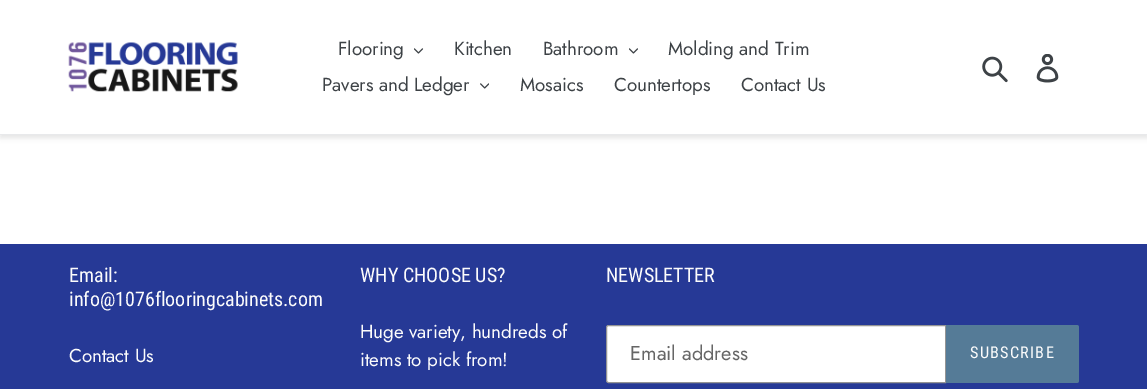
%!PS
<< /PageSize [1147 389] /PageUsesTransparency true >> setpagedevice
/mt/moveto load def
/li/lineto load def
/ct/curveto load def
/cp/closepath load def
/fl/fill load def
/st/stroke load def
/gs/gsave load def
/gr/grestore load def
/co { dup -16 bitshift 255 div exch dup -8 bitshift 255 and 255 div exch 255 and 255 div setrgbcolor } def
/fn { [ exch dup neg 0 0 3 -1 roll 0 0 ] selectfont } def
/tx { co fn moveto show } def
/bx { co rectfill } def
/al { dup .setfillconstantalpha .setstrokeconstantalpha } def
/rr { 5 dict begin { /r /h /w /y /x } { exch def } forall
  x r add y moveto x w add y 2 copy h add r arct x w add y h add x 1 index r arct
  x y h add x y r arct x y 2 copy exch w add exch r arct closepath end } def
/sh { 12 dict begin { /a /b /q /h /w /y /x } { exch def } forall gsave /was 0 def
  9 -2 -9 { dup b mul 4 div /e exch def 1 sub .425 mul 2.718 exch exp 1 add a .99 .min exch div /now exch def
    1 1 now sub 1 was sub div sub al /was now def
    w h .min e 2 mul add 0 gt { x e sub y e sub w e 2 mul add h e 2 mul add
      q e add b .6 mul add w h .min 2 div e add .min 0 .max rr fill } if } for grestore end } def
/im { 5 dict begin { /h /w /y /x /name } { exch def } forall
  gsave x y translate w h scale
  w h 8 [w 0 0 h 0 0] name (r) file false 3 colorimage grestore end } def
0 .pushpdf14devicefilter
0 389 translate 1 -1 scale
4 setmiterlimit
0 0 1147 389 16#FFFFFF bx
16#000000 co
0 3 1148 135 0 2.5 .1 sh
0 0 1147 134 16#FFFFFF bx
0 134 1147 1 16#E8E9EB bx
(media/1.raw) 68 42 170 50 im
(media/2.raw) 414 48 10 6 im
(media/3.raw) 629 48 9 6 im
(media/4.raw) 480 83 9 6 im
(media/5.raw) 982 56 26 27 im
(media/6.raw) 1036 54 23 29 im
0 244 1147 145 16#263996 bx
16#FFFFFF co
608.5 325.5 mt 945.5 325.5 li 945.5 382.5 li 608.5 382.5 li 607.5 382.5 606.5 381.5 606.5 380.5 ct 606.5 327.5 li 606.5 326.5 607.5 325.5 608.5 325.5 ct cp gs fl gr
16#949494 co
st
16#557B97 co
946 325 mt 1076.5 325 li 1078 325 1079 326 1079 327.5 ct 1079 380.5 li 1079 382 1078 383 1076.5 383 ct 946 383 li cp fl
(Flooring) 338 55 /Jost-Regular 18.75 16#3D4246 tx
(Kitchen) 454 55 /Jost-Regular 18.75 16#3D4246 tx
(Bathroom) 543 55 /Jost-Regular 18.75 16#3D4246 tx
(Molding and Trim) 668 55 /Jost-Regular 18.75 16#3D4246 tx
(Pavers and Ledger) 322 91 /Jost-Regular 18.75 16#3D4246 tx
(Mosaics) 520 91 /Jost-Regular 18.75 16#3D4246 tx
(Countertops) 614 91 /Jost-Regular 18.75 16#3D4246 tx
(Contact Us) 741 91 /Jost-Regular 18.75 16#3D4246 tx
(Email:) 69 282 /RobotoCondensed-Regular 20 16#FCFCFC tx
(info@1076flooringcabinets.com) 69 306 /RobotoCondensed-Regular 20 16#FCFCFC tx
(Contact Us) 69 362 /Jost-Regular 18.75 16#FCFCFC tx
(WHY CHOOSE US?) 360 282 /RobotoCondensed-Regular 20 16#FCFCFC tx
(Huge variety, hundreds of) 360 338 /Jost-Regular 18.75 16#FCFCFC tx
(items to pick from!) 360 366 /Jost-Regular 18.75 16#FCFCFC tx
(NEWSLETTER) 606 282 /RobotoCondensed-Regular 20 16#FCFCFC tx
(Email address) 630 360 /Jost-Regular 20 16#666666 tx
/RobotoCondensed-Regular 16.25 fn
16#FCFCFC co
970 358 mt 1.25 0 (SUBSCRIBE) ashow
.poppdf14devicefilter showpage
